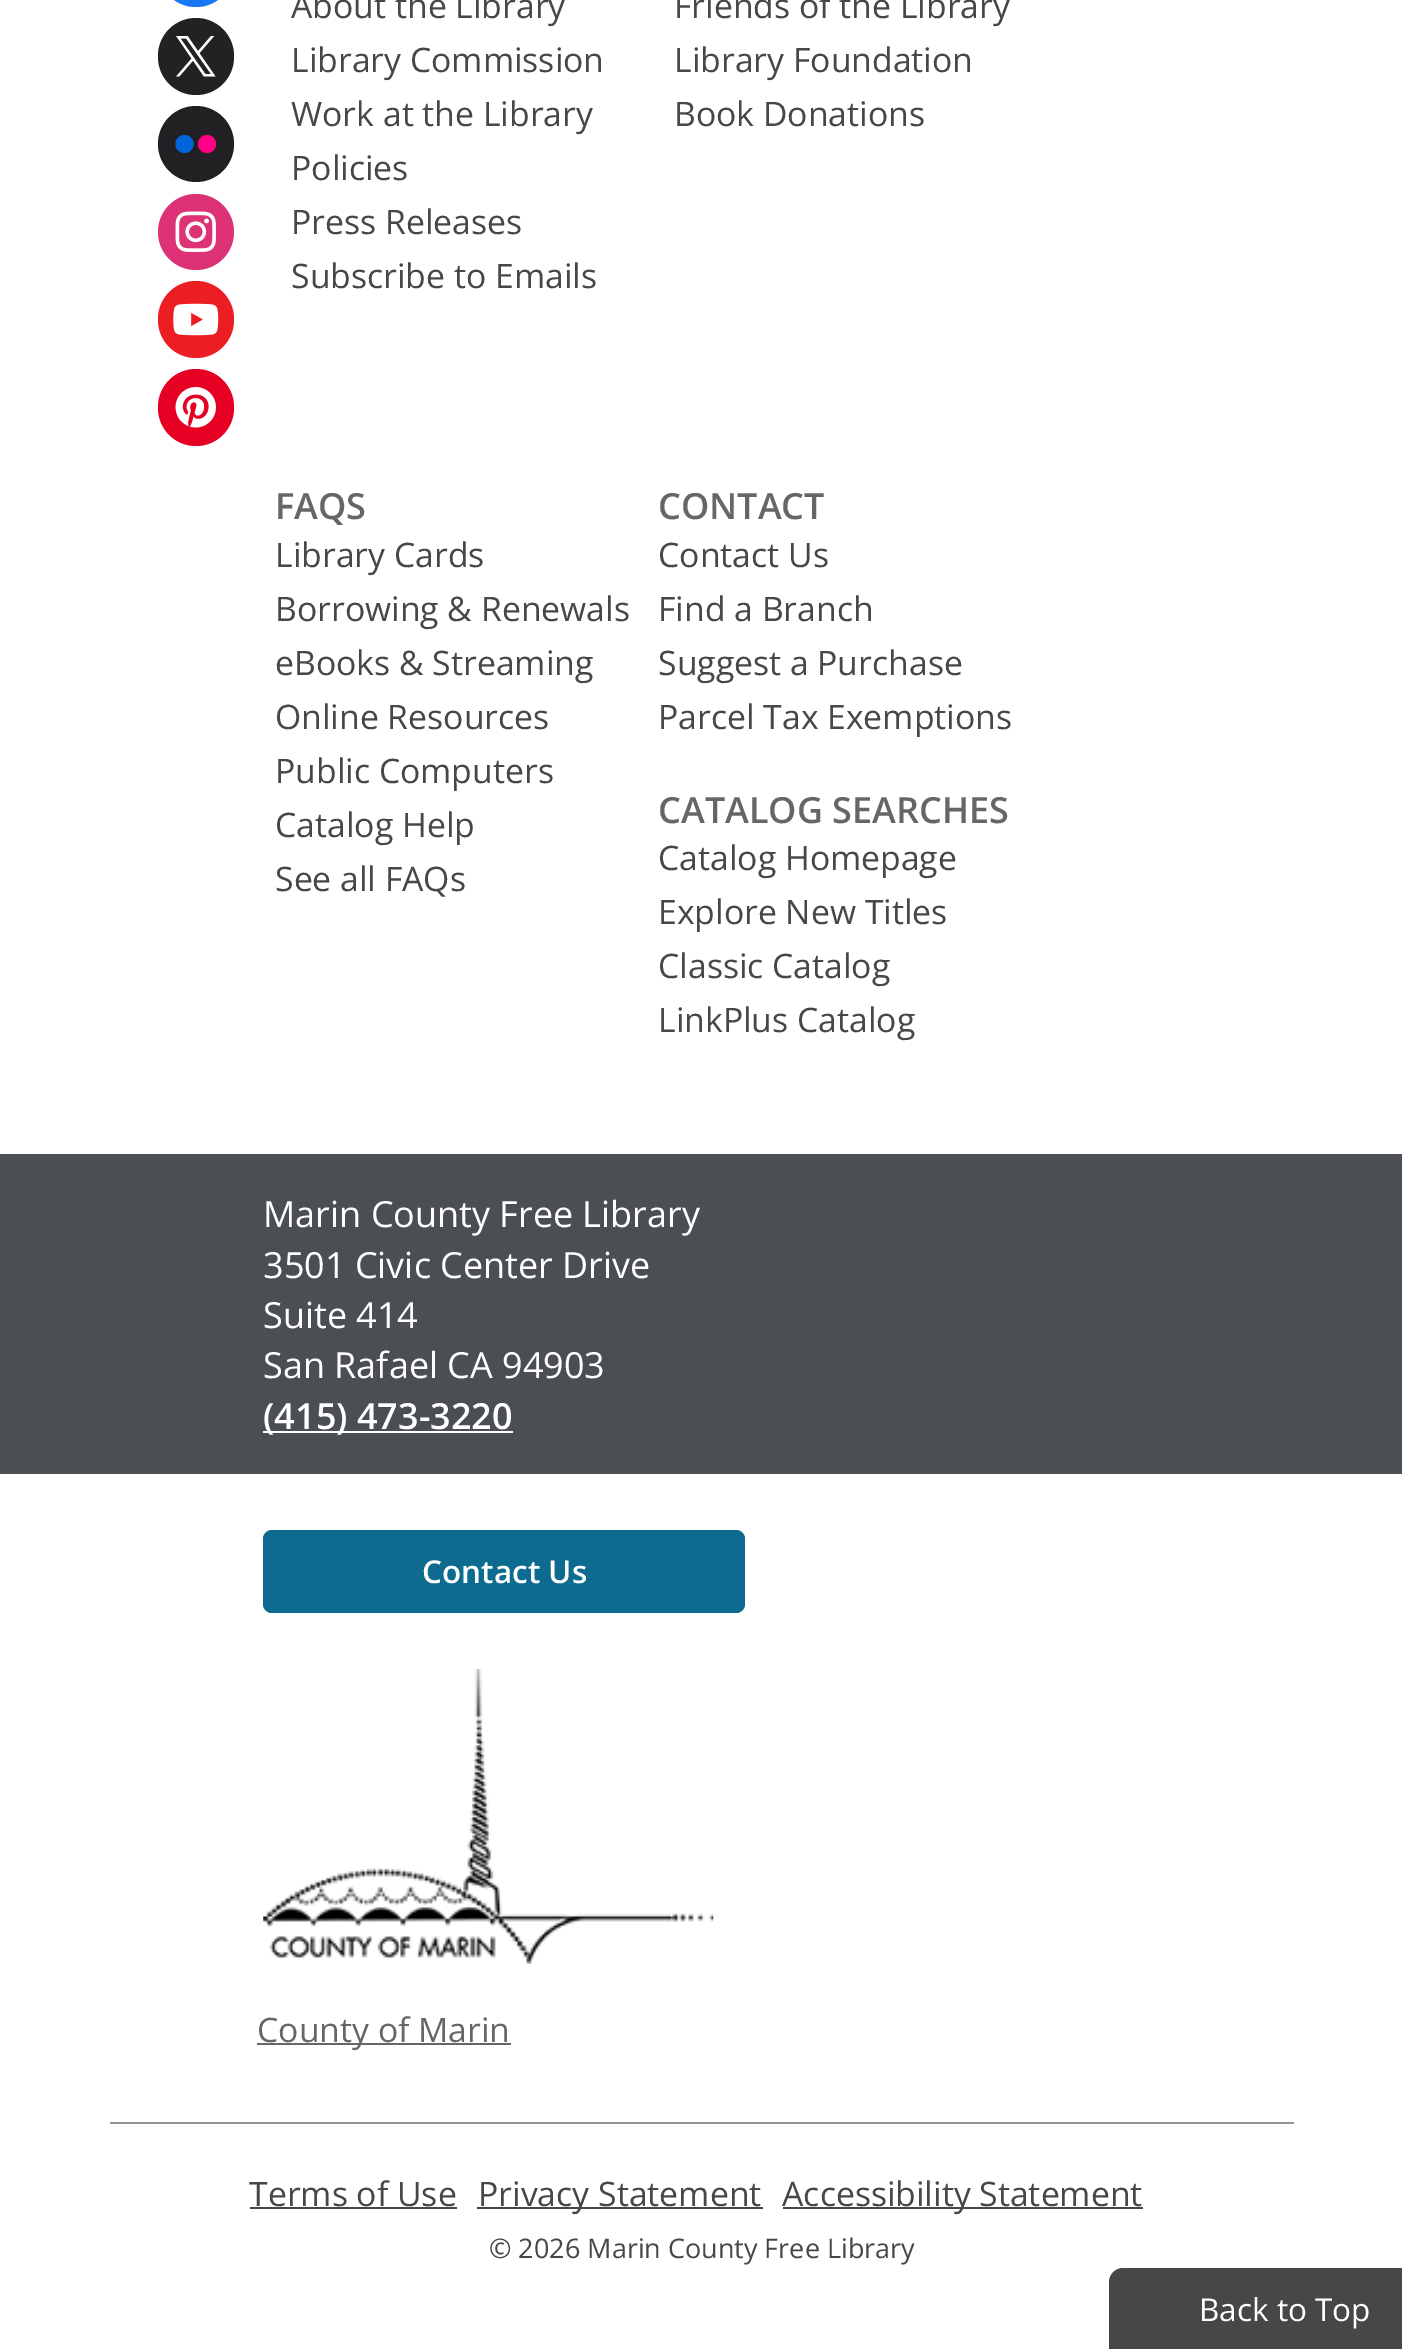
%!PS
<< /PageSize [1402 2349] >> setpagedevice
/mt/moveto load def
/li/lineto load def
/ct/curveto load def
/cp/closepath load def
/fl/fill load def
/co { dup -16 bitshift 255 div exch dup -8 bitshift 255 and 255 div exch 255 and 255 div setrgbcolor } def
/fn { [ exch dup neg 0 0 3 -1 roll 0 0 ] selectfont } def
/tx { co fn moveto show } def
/bx { co rectfill } def
/ci { newpath 0 360 arc closepath } def
/rr { 5 dict begin { /r /h /w /y /x } { exch def } forall
  x r add y moveto x w add y 2 copy h add r arct x w add y h add x 1 index r arct
  x y h add x y r arct x y 2 copy exch w add exch r arct closepath end } def
/im { 5 dict begin { /h /w /y /x /name } { exch def } forall
  gsave x y translate w h scale
  w h 8 [w 0 0 h 0 0] name (r) file false 3 colorimage grestore end } def
0 2349 translate 1 -1 scale
4 setmiterlimit
0 0 1402 2349 16#FFFFFF bx
16#1877F2 co
158 -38 76 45 38 rr fl
16#222222 co
158 18 76 77 38 rr fl
(media/1.raw) 176 36 40 41 im
16#212123 co
196 144 38 ci fl
16#0063DC co
184.5 144 9 ci fl
16#FF0084 co
207 144 9 ci fl
16#DD3275 co
196 232 38 ci fl
(media/2.raw) 175 211 41 41 im
16#ED1D24 co
158 281 76 77 38 rr fl
(media/3.raw) 173 303 46 33 im
16#E60023 co
158 369 76 77 38 rr fl
(media/4.raw) 175 387 41 41 im
0 1154 1402 320 16#4B4F54 bx
263 1431 250 2 16#FFFFFF bx
16#0D6B8F co
263 1530 482 83 9 rr fl
(media/5.raw) 263 1669 451 295 im
257 2043 254 2 16#666666 bx
110 2122 1184 2 16#949494 bx
250 2207 207 2 16#474747 bx
477 2207 286 2 16#474747 bx
783 2207 360 2 16#474747 bx
1123 2268 mt 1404 2268 li 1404 2349 li 1109 2349 li 1109 2282 li 1109 2274.5 1115.5 2268 1123 2268 ct cp fl
(About the Library) 291 18 /OpenSans-Regular 33.75 16#474747 tx
(Library Commission) 291 72 /OpenSans-Regular 33.75 16#474747 tx
(Work at the Library) 291 126 /OpenSans-Regular 33.75 16#474747 tx
(Policies) 291 180 /OpenSans-Regular 33.75 16#474747 tx
(Press Releases) 291 234 /OpenSans-Regular 33.75 16#474747 tx
(Subscribe to Emails) 291 288 /OpenSans-Regular 33.75 16#474747 tx
(Friends of the Library) 674 18 /OpenSans-Regular 33.75 16#474747 tx
(Library Foundation) 674 72 /OpenSans-Regular 33.75 16#474747 tx
(Book Donations) 674 126 /OpenSans-Regular 33.75 16#474747 tx
(FAQS) 275 519 /OpenSans-SemiBold 36 16#666666 tx
(Library Cards) 275 567 /OpenSans-Regular 33.75 16#474747 tx
(Borrowing & Renewals) 275 621 /OpenSans-Regular 33.75 16#474747 tx
(eBooks & Streaming) 275 675 /OpenSans-Regular 33.75 16#474747 tx
(Online Resources) 275 729 /OpenSans-Regular 33.75 16#474747 tx
(Public Computers) 275 783 /OpenSans-Regular 33.75 16#474747 tx
(Catalog Help) 275 837 /OpenSans-Regular 33.75 16#474747 tx
(See all FAQs) 275 891 /OpenSans-Regular 33.75 16#474747 tx
(CONTACT) 658 519 /OpenSans-SemiBold 36 16#666666 tx
(Contact Us) 658 567 /OpenSans-Regular 33.75 16#474747 tx
(Find a Branch) 658 621 /OpenSans-Regular 33.75 16#474747 tx
(Suggest a Purchase) 658 675 /OpenSans-Regular 33.75 16#474747 tx
(Parcel Tax Exemptions) 658 729 /OpenSans-Regular 33.75 16#474747 tx
(CATALOG SEARCHES) 658 823 /OpenSans-SemiBold 36 16#666666 tx
(Catalog Homepage) 658 870 /OpenSans-Regular 33.75 16#474747 tx
(Explore New Titles) 658 924 /OpenSans-Regular 33.75 16#474747 tx
(Classic Catalog) 658 978 /OpenSans-Regular 33.75 16#474747 tx
(LinkPlus Catalog) 658 1032 /OpenSans-Regular 33.75 16#474747 tx
(Marin County Free Library) 263 1227 /OpenSans-Regular 36 16#FFFFFF tx
(3501 Civic Center Drive) 263 1278 /OpenSans-Regular 36 16#FFFFFF tx
(Suite 414) 263 1328 /OpenSans-Regular 36 16#FFFFFF tx
(San Rafael CA 94903) 263 1378 /OpenSans-Regular 36 16#FFFFFF tx
(\(415\) 473-3220) 263 1429 /OpenSans-SemiBold 36 16#FFFFFF tx
(Contact Us) 422 1583 /OpenSans-SemiBold 31.5 16#FFFFFF tx
(County of Marin) 257 2042 /OpenSans-Regular 33.75 16#666666 tx
(Terms of Use) 249 2206 /OpenSans-Regular 33.75 16#474747 tx
(Privacy Statement) 478 2206 /OpenSans-Regular 33.75 16#474747 tx
(Accessibility Statement) 782 2206 /OpenSans-Regular 33.75 16#474747 tx
(© 2026 Marin County Free Library) 489 2258 /OpenSans-Regular 27 16#474747 tx
(Back to Top) 1199 2321 /OpenSans-Regular 31.5 16#FFFFFF tx
showpage
